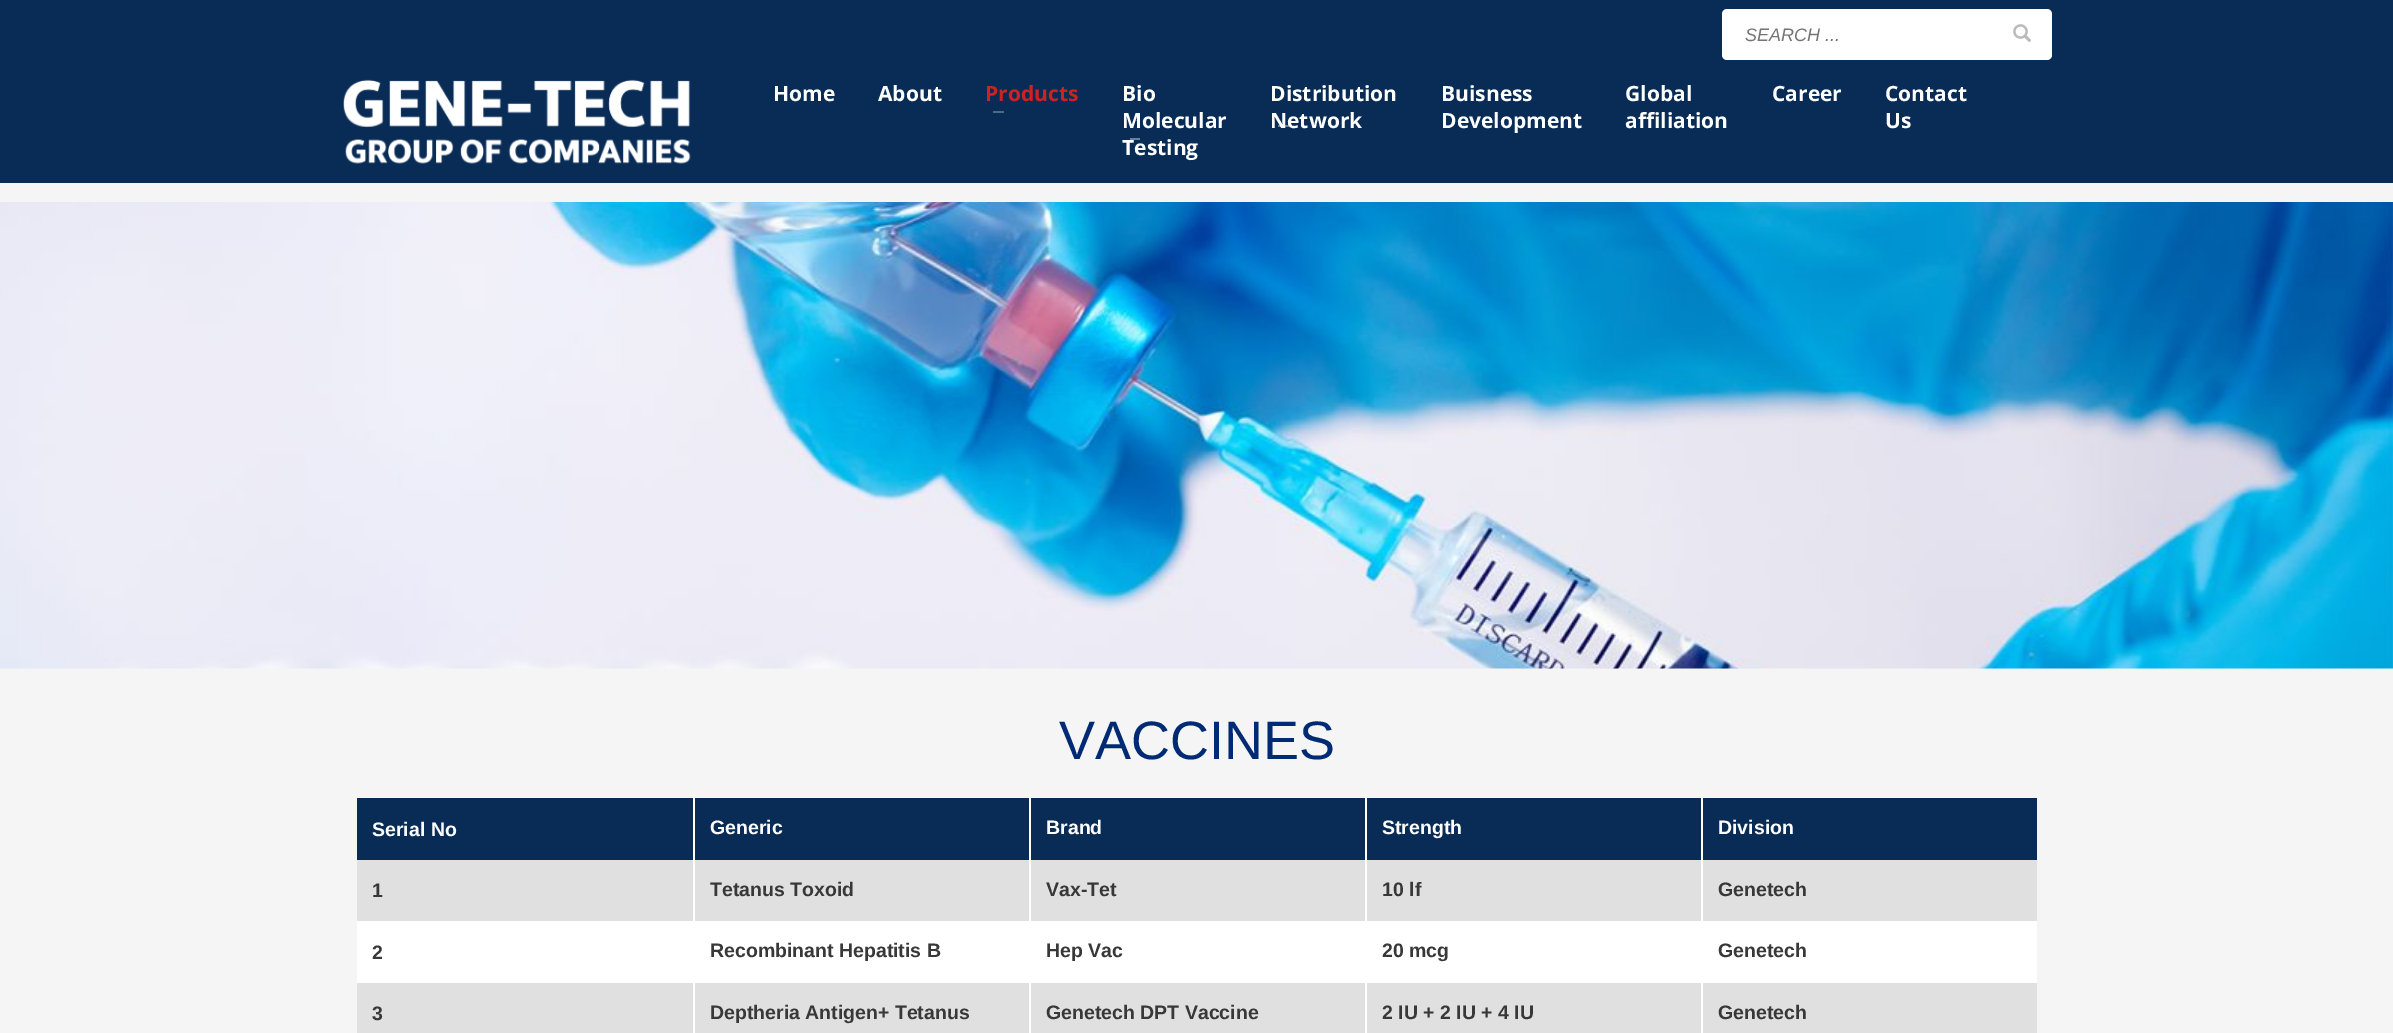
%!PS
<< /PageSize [2393 1033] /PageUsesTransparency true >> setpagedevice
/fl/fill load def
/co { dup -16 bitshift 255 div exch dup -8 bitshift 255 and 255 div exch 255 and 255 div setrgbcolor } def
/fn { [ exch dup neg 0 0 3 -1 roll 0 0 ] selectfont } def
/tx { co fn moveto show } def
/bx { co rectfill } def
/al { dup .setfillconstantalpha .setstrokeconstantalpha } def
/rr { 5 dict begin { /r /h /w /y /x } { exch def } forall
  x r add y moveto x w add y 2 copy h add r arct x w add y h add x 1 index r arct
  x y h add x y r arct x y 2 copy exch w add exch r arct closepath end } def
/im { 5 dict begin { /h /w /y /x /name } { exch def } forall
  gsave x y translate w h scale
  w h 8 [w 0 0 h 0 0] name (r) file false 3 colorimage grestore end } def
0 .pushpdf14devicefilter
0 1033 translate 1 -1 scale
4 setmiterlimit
0 0 2393 1033 16#F5F5F5 bx
0 0 2393 183 16#092C56 bx
16#FFFFFF co
1722 9 330 51 5 rr fl
(media/1.raw) 2013 24 18 18 im
(media/2.raw) 343 79 348 85 im
993 111 11 2 16#4E6785 bx
(media/3.raw) 0 202 2393 467 im
357 798 1680 62 16#092C56 bx
693 798 2 62 16#FFFFFF bx
1029 798 2 62 16#FFFFFF bx
1365 798 2 62 16#FFFFFF bx
1701 798 2 62 16#FFFFFF bx
357 860 1680 61 16#E0E0E0 bx
693 860 2 61 16#FFFFFF bx
1029 860 2 61 16#FFFFFF bx
1365 860 2 61 16#FFFFFF bx
1701 860 2 61 16#FFFFFF bx
357 921 1680 62 16#FFFFFF bx
357 983 1680 50 16#E0E0E0 bx
693 983 2 50 16#FFFFFF bx
1029 983 2 50 16#FFFFFF bx
1365 983 2 50 16#FFFFFF bx
1701 983 2 50 16#FFFFFF bx
(SEARCH ...) 1745 41 /LiberationSans-Italic 18 16#757575 tx
(Home) 773 101 /OpenSans-Bold 21 16#FFFFFF tx
(About) 878 101 /OpenSans-Bold 21 16#FFFFFF tx
(Products) 985 101 /OpenSans-Bold 21 16#CD2122 tx
(Bio) 1122 101 /OpenSans-Bold 21 16#FFFFFF tx
(Molecular) 1122 128 /OpenSans-Bold 21 16#FFFFFF tx
(Testing) 1122 155 /OpenSans-Bold 21 16#FFFFFF tx
1130 138 10 2 16#6B809A bx
(Distribution) 1270 101 /OpenSans-Bold 21 16#FFFFFF tx
(Network) 1270 128 /OpenSans-Bold 21 16#FFFFFF tx
0.4 al
1278 125 11 2 16#FFFFFF bx
1 al
(Buisness) 1441 101 /OpenSans-Bold 21 16#FFFFFF tx
(Development) 1441 128 /OpenSans-Bold 21 16#FFFFFF tx
(Global) 1625 101 /OpenSans-Bold 21 16#FFFFFF tx
(affiliation) 1625 128 /OpenSans-Bold 21 16#FFFFFF tx
(Career) 1772 101 /OpenSans-Bold 21 16#FFFFFF tx
(Contact) 1885 101 /OpenSans-Bold 21 16#FFFFFF tx
(Us) 1885 128 /OpenSans-Bold 21 16#FFFFFF tx
(VACCINES) 1059 759 /LiberationSans-Regular 54 16#002A74 tx
(Serial No) 372 836 /LiberationSans-Bold 19.5 16#FFFFFF tx
(Generic) 710 834 /LiberationSans-Bold 19.5 16#FFFFFF tx
(Brand) 1046 834 /LiberationSans-Bold 19.5 16#FFFFFF tx
(Strength) 1382 834 /LiberationSans-Bold 19.5 16#FFFFFF tx
(Division) 1718 834 /LiberationSans-Bold 19.5 16#FFFFFF tx
(1) 372 897 /LiberationSans-Bold 19.5 16#383838 tx
(Tetanus Toxoid) 710 896 /LiberationSans-Bold 19.5 16#383838 tx
(Vax-Tet) 1046 896 /LiberationSans-Bold 19.5 16#383838 tx
(10 lf) 1382 896 /LiberationSans-Bold 19.5 16#383838 tx
(Genetech) 1718 896 /LiberationSans-Bold 19.5 16#383838 tx
(2) 372 959 /LiberationSans-Bold 19.5 16#383838 tx
(Recombinant Hepatitis B) 710 957 /LiberationSans-Bold 19.5 16#383838 tx
(Hep Vac) 1046 957 /LiberationSans-Bold 19.5 16#383838 tx
(20 mcg) 1382 957 /LiberationSans-Bold 19.5 16#383838 tx
(Genetech) 1718 957 /LiberationSans-Bold 19.5 16#383838 tx
(3) 372 1020 /LiberationSans-Bold 19.5 16#383838 tx
(Deptheria Antigen+ Tetanus) 710 1019 /LiberationSans-Bold 19.5 16#383838 tx
(Genetech DPT Vaccine) 1046 1019 /LiberationSans-Bold 19.5 16#383838 tx
(2 IU + 2 IU + 4 IU) 1382 1019 /LiberationSans-Bold 19.5 16#383838 tx
(Genetech) 1718 1019 /LiberationSans-Bold 19.5 16#383838 tx
.poppdf14devicefilter showpage
